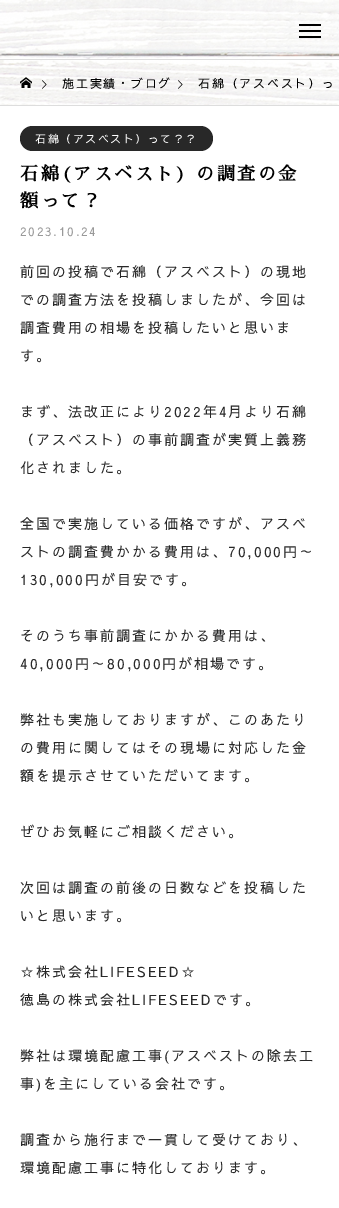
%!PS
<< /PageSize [339 1208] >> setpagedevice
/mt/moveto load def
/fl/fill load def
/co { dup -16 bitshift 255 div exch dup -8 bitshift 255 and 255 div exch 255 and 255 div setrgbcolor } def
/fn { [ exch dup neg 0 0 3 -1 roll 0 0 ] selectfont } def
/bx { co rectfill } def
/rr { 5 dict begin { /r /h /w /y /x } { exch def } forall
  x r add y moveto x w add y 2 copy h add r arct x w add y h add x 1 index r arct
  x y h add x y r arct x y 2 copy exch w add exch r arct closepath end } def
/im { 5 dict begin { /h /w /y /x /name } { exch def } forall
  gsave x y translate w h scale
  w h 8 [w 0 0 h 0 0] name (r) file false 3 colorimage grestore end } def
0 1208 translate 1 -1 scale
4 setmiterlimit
0 0 339 1208 16#FFFFFF bx
(media/1.raw) 0 0 339 105 im
299 24 22 2 16#000000 bx
299 30 22 2 16#000000 bx
299 36 22 2 16#000000 bx
0 59 339 1 16#DDDDDD bx
0 105 339 1 16#DDDDDD bx
(media/2.raw) 20 77 12 11 im
(media/3.raw) 42 80 5 9 im
(media/4.raw) 178 80 5 9 im
16#282828 co
20 126 193 25 12.5 rr fl
/SawarabiGothic-Regular 12 fn
16#000000 co
62 88 mt 1.75 0 (施工実績・ブログ) ashow
198 88 mt 1.75 0 (石綿（アスベスト）っ) ashow
/SawarabiGothic-Regular 11 fn
16#FFFFFF co
35 143 mt 1.5 0 (石綿（アスベスト）って？？) ashow
/SawarabiMincho-Bold 18 fn
16#000000 co
20 180 mt 2.5 0 (石綿\(アスベスト\) の調査の金) ashow
20 207 mt 2.5 0 (額って？) ashow
/SawarabiGothic-Regular 12 fn
16#999999 co
20 236 mt 1.75 0 (2023.10.24) ashow
/SawarabiGothic-Regular 14 fn
16#282828 co
20 277 mt 2 0 (前回の投稿で石綿（アスベスト）の現地) ashow
20 305 mt 2 0 (での調査方法を投稿しましたが、今回は) ashow
20 333 mt 2 0 (調査費用の相場を投稿したいと思いま) ashow
20 361 mt 2 0 (す。) ashow
20 417 mt 2 0 (まず、法改正により2022年4月より石綿) ashow
20 445 mt 2 0 (（アスベスト）の事前調査が実質上義務) ashow
20 473 mt 2 0 (化されました。) ashow
20 529 mt 2 0 (全国で実施している価格ですが、アスベ) ashow
20 557 mt 2 0 (ストの調査費かかる費用は、70,000円～) ashow
20 585 mt 2 0 (130,000円が目安です。) ashow
20 641 mt 2 0 (そのうち事前調査にかかる費用は、) ashow
20 669 mt 2 0 (40,000円～80,000円が相場です。) ashow
20 725 mt 2 0 (弊社も実施しておりますが、このあたり) ashow
20 753 mt 2 0 (の費用に関してはその現場に対応した金) ashow
20 781 mt 2 0 (額を提示させていただいてます。) ashow
20 837 mt 2 0 (ぜひお気軽にご相談ください。) ashow
20 893 mt 2 0 (次回は調査の前後の日数などを投稿した) ashow
20 921 mt 2 0 (いと思います。) ashow
20 977 mt 2 0 (☆株式会社LIFESEED☆) ashow
20 1005 mt 2 0 (徳島の株式会社LIFESEEDです。) ashow
20 1061 mt 2 0 (弊社は環境配慮工事\(アスベストの除去工) ashow
20 1089 mt 2 0 (事\)を主にしている会社です。) ashow
20 1145 mt 2 0 (調査から施行まで一貫して受けており、) ashow
20 1173 mt 2 0 (環境配慮工事に特化しております。) ashow
showpage
